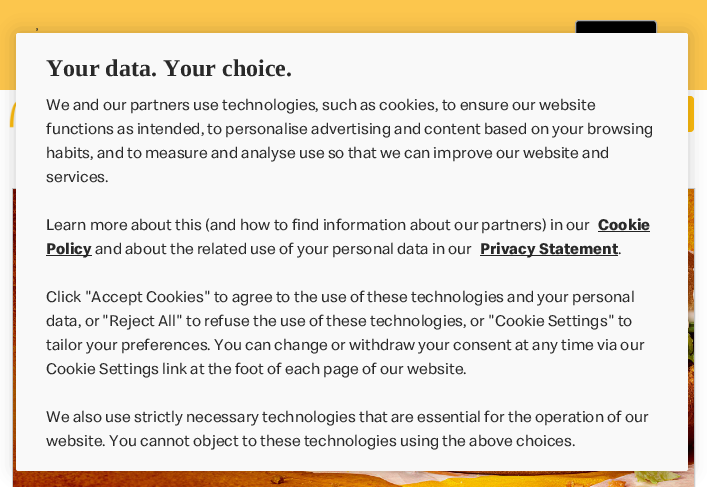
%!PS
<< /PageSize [707 487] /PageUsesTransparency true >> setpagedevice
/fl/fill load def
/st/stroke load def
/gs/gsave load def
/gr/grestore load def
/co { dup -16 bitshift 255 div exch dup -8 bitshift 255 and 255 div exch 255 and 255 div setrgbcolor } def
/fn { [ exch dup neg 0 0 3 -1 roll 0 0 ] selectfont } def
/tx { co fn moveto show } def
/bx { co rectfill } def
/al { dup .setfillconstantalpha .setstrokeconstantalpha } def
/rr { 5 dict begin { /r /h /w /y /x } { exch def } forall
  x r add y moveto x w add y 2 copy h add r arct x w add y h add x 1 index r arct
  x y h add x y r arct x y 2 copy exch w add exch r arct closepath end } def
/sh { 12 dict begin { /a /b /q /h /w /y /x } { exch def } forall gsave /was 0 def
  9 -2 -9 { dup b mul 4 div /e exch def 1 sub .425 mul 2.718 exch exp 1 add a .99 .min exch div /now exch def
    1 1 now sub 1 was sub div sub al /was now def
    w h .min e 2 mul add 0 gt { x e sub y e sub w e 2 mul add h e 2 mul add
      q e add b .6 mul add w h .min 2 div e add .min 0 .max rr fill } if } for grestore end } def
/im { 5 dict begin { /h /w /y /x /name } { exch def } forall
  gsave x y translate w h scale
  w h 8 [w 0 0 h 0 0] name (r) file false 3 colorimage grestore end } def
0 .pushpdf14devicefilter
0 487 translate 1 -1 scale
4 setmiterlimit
0 0 707 487 16#FFFFFF bx
0 0 707 90 16#FCC64D bx
16#000000 co
575 22 82 48 4 1 .08 sh
575.5 20.5 81 47 3.5 rr gs fl gr
16#ADADAD co
st
(media/1.raw) 9 100 7 28 im
16#FFBC0D co
564 96 130 36 4 rr fl
16#CECECE co
12.5 188.5 682 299 rectstroke
(media/2.raw) 13 189 681 298 im
16#000000 co
16 33 672 438 2.5 9 .2 sh
16#F9F9F9 co
16 33 672 438 2.5 rr fl
598 231 52 1 16#242424 bx
46 255 46 1 16#242424 bx
480 255 138 1 16#242424 bx
(’) 36 38 /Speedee-Regular 14 16#292929 tx
(Your data. Your choice.) 46 76 /LiberationSerif-Bold 24 16#292929 tx
(We and our partners use technologies, such as cookies, to ensure our website) 46 110 /Speedee-Regular 16 16#292929 tx
(functions as intended, to personalise advertising and content based on your browsing) 46 134 /Speedee-Regular 16 16#292929 tx
(habits, and to measure and analyse use so that we can improve our website and) 46 158 /Speedee-Regular 16 16#292929 tx
(services.) 46 182 /Speedee-Regular 16 16#292929 tx
(Learn more about this \(and how to find information about our partners\) in our) 46 230 /Speedee-Regular 16 16#292929 tx
(Cookie) 598 230 /Speedee-Bold 16 16#292929 tx
(Policy) 46 254 /Speedee-Bold 16 16#292929 tx
(and about the related use of your personal data in our) 95 254 /Speedee-Regular 16 16#292929 tx
(Privacy Statement) 480 254 /Speedee-Bold 16 16#292929 tx
(.) 618 254 /Speedee-Regular 16 16#292929 tx
(Click "Accept Cookies" to agree to the use of these technologies and your personal) 46 302 /Speedee-Regular 16 16#292929 tx
(data, or "Reject All" to refuse the use of these technologies, or "Cookie Settings" to) 46 326 /Speedee-Regular 16 16#292929 tx
(tailor your preferences. You can change or withdraw your consent at any time via our) 46 350 /Speedee-Regular 16 16#292929 tx
(Cookie Settings link at the foot of each page of our website.) 46 374 /Speedee-Regular 16 16#292929 tx
(We also use strictly necessary technologies that are essential for the operation of our) 46 422 /Speedee-Regular 16 16#292929 tx
(website. You cannot object to these technologies using the above choices.) 46 446 /Speedee-Regular 16 16#292929 tx
.poppdf14devicefilter showpage
